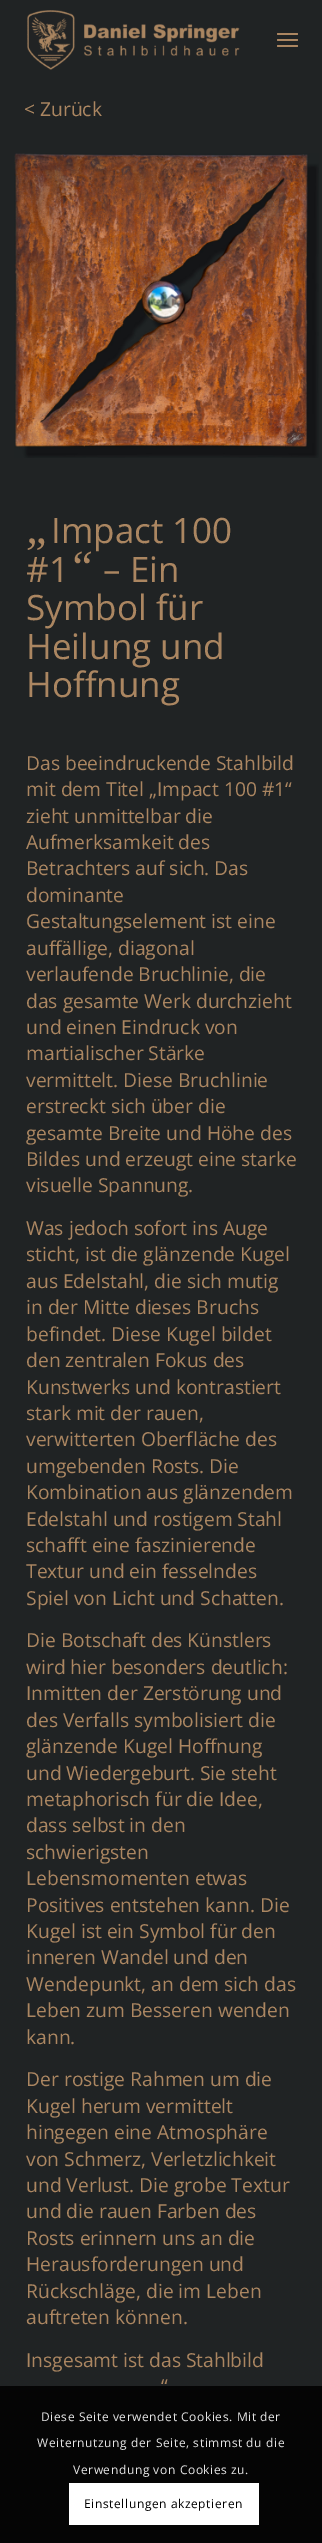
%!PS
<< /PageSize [322 2543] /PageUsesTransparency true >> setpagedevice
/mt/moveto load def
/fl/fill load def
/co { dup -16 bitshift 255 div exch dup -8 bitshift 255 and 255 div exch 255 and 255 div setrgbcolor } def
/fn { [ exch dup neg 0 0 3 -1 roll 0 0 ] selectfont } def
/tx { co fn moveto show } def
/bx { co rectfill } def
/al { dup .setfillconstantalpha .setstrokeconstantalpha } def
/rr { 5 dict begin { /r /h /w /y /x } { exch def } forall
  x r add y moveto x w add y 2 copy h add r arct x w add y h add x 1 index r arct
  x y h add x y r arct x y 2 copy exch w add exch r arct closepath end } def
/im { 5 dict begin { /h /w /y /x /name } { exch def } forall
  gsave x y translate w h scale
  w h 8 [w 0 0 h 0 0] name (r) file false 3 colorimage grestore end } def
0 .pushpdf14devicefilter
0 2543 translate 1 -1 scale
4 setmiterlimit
0 0 322 2543 16#202324 bx
(media/1.raw) 27 10 213 60 im
16#AB8661 co
277 39 21 2 1 rr fl
277 33 21 2 1 rr fl
277 45 21 2 1 rr fl
(media/2.raw) 14 153 305 305 im
0.85 al
0 2386 322 157 16#000000 bx
1 al
69 2483 190 42 16#FFFFFF bx
(< Zurück) 24 116 /OpenSans-Regular 19.25 16#AB8661 tx
(„) 26 543 /LiberationSerif-Italic 46 16#AB8661 tx
(Impact 100) 51 543 /OpenSans-Regular 35 16#AB8661 tx
(#1) 26 582 /OpenSans-Regular 35 16#AB8661 tx
(“) 68 582 /LiberationSerif-Italic 46 16#AB8661 tx
(– Ein) 103 582 /OpenSans-Regular 35 16#AB8661 tx
(Symbol für) 26 620 /OpenSans-Regular 35 16#AB8661 tx
(Heilung und) 26 659 /OpenSans-Regular 35 16#AB8661 tx
(Hoffnung) 26 697 /OpenSans-Regular 35 16#AB8661 tx
(Das beeindruckende Stahlbild) 26 770 /OpenSans-Regular 19.25 16#AB8661 tx
(mit dem Titel „Impact 100 #1“) 26 796 /OpenSans-Regular 19.25 16#AB8661 tx
(zieht unmittelbar die) 26 823 /OpenSans-Regular 19.25 16#AB8661 tx
(Aufmerksamkeit des) 26 849 /OpenSans-Regular 19.25 16#AB8661 tx
(Betrachters auf sich. Das) 26 875 /OpenSans-Regular 19.25 16#AB8661 tx
(dominante) 26 902 /OpenSans-Regular 19.25 16#AB8661 tx
(Gestaltungselement ist eine) 26 928 /OpenSans-Regular 19.25 16#AB8661 tx
(auffällige, diagonal) 26 955 /OpenSans-Regular 19.25 16#AB8661 tx
(verlaufende Bruchlinie, die) 26 981 /OpenSans-Regular 19.25 16#AB8661 tx
(das gesamte Werk durchzieht) 26 1008 /OpenSans-Regular 19.25 16#AB8661 tx
(und einen Eindruck von) 26 1034 /OpenSans-Regular 19.25 16#AB8661 tx
(martialischer Stärke) 26 1060 /OpenSans-Regular 19.25 16#AB8661 tx
(vermittelt. Diese Bruchlinie) 26 1087 /OpenSans-Regular 19.25 16#AB8661 tx
(erstreckt sich über die) 26 1113 /OpenSans-Regular 19.25 16#AB8661 tx
(gesamte Breite und Höhe des) 26 1140 /OpenSans-Regular 19.25 16#AB8661 tx
(Bildes und erzeugt eine starke) 26 1166 /OpenSans-Regular 19.25 16#AB8661 tx
(visuelle Spannung.) 26 1192 /OpenSans-Regular 19.25 16#AB8661 tx
(Was jedoch sofort ins Auge) 26 1235 /OpenSans-Regular 19.25 16#AB8661 tx
(sticht, ist die glänzende Kugel) 26 1261 /OpenSans-Regular 19.25 16#AB8661 tx
(aus Edelstahl, die sich mutig) 26 1288 /OpenSans-Regular 19.25 16#AB8661 tx
(in der Mitte dieses Bruchs) 26 1314 /OpenSans-Regular 19.25 16#AB8661 tx
(befindet. Diese Kugel bildet) 26 1341 /OpenSans-Regular 19.25 16#AB8661 tx
(den zentralen Fokus des) 26 1367 /OpenSans-Regular 19.25 16#AB8661 tx
(Kunstwerks und kontrastiert) 26 1394 /OpenSans-Regular 19.25 16#AB8661 tx
(stark mit der rauen,) 26 1420 /OpenSans-Regular 19.25 16#AB8661 tx
(verwitterten Oberfläche des) 26 1446 /OpenSans-Regular 19.25 16#AB8661 tx
(umgebenden Rosts. Die) 26 1473 /OpenSans-Regular 19.25 16#AB8661 tx
(Kombination aus glänzendem) 26 1499 /OpenSans-Regular 19.25 16#AB8661 tx
(Edelstahl und rostigem Stahl) 26 1526 /OpenSans-Regular 19.25 16#AB8661 tx
(schafft eine faszinierende) 26 1552 /OpenSans-Regular 19.25 16#AB8661 tx
(Textur und ein fesselndes) 26 1578 /OpenSans-Regular 19.25 16#AB8661 tx
(Spiel von Licht und Schatten.) 26 1605 /OpenSans-Regular 19.25 16#AB8661 tx
(Die Botschaft des Künstlers) 26 1647 /OpenSans-Regular 19.25 16#AB8661 tx
(wird hier besonders deutlich:) 26 1674 /OpenSans-Regular 19.25 16#AB8661 tx
(Inmitten der Zerstörung und) 26 1700 /OpenSans-Regular 19.25 16#AB8661 tx
(des Verfalls symbolisiert die) 26 1727 /OpenSans-Regular 19.25 16#AB8661 tx
(glänzende Kugel Hoffnung) 26 1753 /OpenSans-Regular 19.25 16#AB8661 tx
(und Wiedergeburt. Sie steht) 26 1780 /OpenSans-Regular 19.25 16#AB8661 tx
(metaphorisch für die Idee,) 26 1806 /OpenSans-Regular 19.25 16#AB8661 tx
(dass selbst in den) 26 1832 /OpenSans-Regular 19.25 16#AB8661 tx
(schwierigsten) 26 1859 /OpenSans-Regular 19.25 16#AB8661 tx
(Lebensmomenten etwas) 26 1885 /OpenSans-Regular 19.25 16#AB8661 tx
(Positives entstehen kann. Die) 26 1912 /OpenSans-Regular 19.25 16#AB8661 tx
(Kugel ist ein Symbol für den) 26 1938 /OpenSans-Regular 19.25 16#AB8661 tx
(inneren Wandel und den) 26 1964 /OpenSans-Regular 19.25 16#AB8661 tx
(Wendepunkt, an dem sich das) 26 1991 /OpenSans-Regular 19.25 16#AB8661 tx
(Leben zum Besseren wenden) 26 2017 /OpenSans-Regular 19.25 16#AB8661 tx
(kann.) 26 2044 /OpenSans-Regular 19.25 16#AB8661 tx
(Der rostige Rahmen um die) 26 2086 /OpenSans-Regular 19.25 16#AB8661 tx
(Kugel herum vermittelt) 26 2113 /OpenSans-Regular 19.25 16#AB8661 tx
(hingegen eine Atmosphäre) 26 2139 /OpenSans-Regular 19.25 16#AB8661 tx
(von Schmerz, Verletzlichkeit) 26 2166 /OpenSans-Regular 19.25 16#AB8661 tx
(und Verlust. Die grobe Textur) 26 2192 /OpenSans-Regular 19.25 16#AB8661 tx
(und die rauen Farben des) 26 2218 /OpenSans-Regular 19.25 16#AB8661 tx
(Rosts erinnern uns an die) 26 2245 /OpenSans-Regular 19.25 16#AB8661 tx
(Herausforderungen und) 26 2271 /OpenSans-Regular 19.25 16#AB8661 tx
(Rückschläge, die im Leben) 26 2298 /OpenSans-Regular 19.25 16#AB8661 tx
(auftreten können.) 26 2324 /OpenSans-Regular 19.25 16#AB8661 tx
(Insgesamt ist das Stahlbild) 26 2367 /OpenSans-Regular 19.25 16#AB8661 tx
(“) 161 2393 /OpenSans-Regular 19.25 16#AB8661 tx
/OpenSans-Regular 12 fn
16#E6E6E6 co
41 2421 mt .6 0 (Diese Seite verwendet Cookies. Mit der) ashow
37 2447 mt .6 0 (Weiternutzung der Seite, stimmst du die) ashow
73 2474 mt .6 0 (Verwendung von Cookies zu.) ashow
16#000000 co
84 2508 mt .6 0 (Einstellungen akzeptieren) ashow
.poppdf14devicefilter showpage
